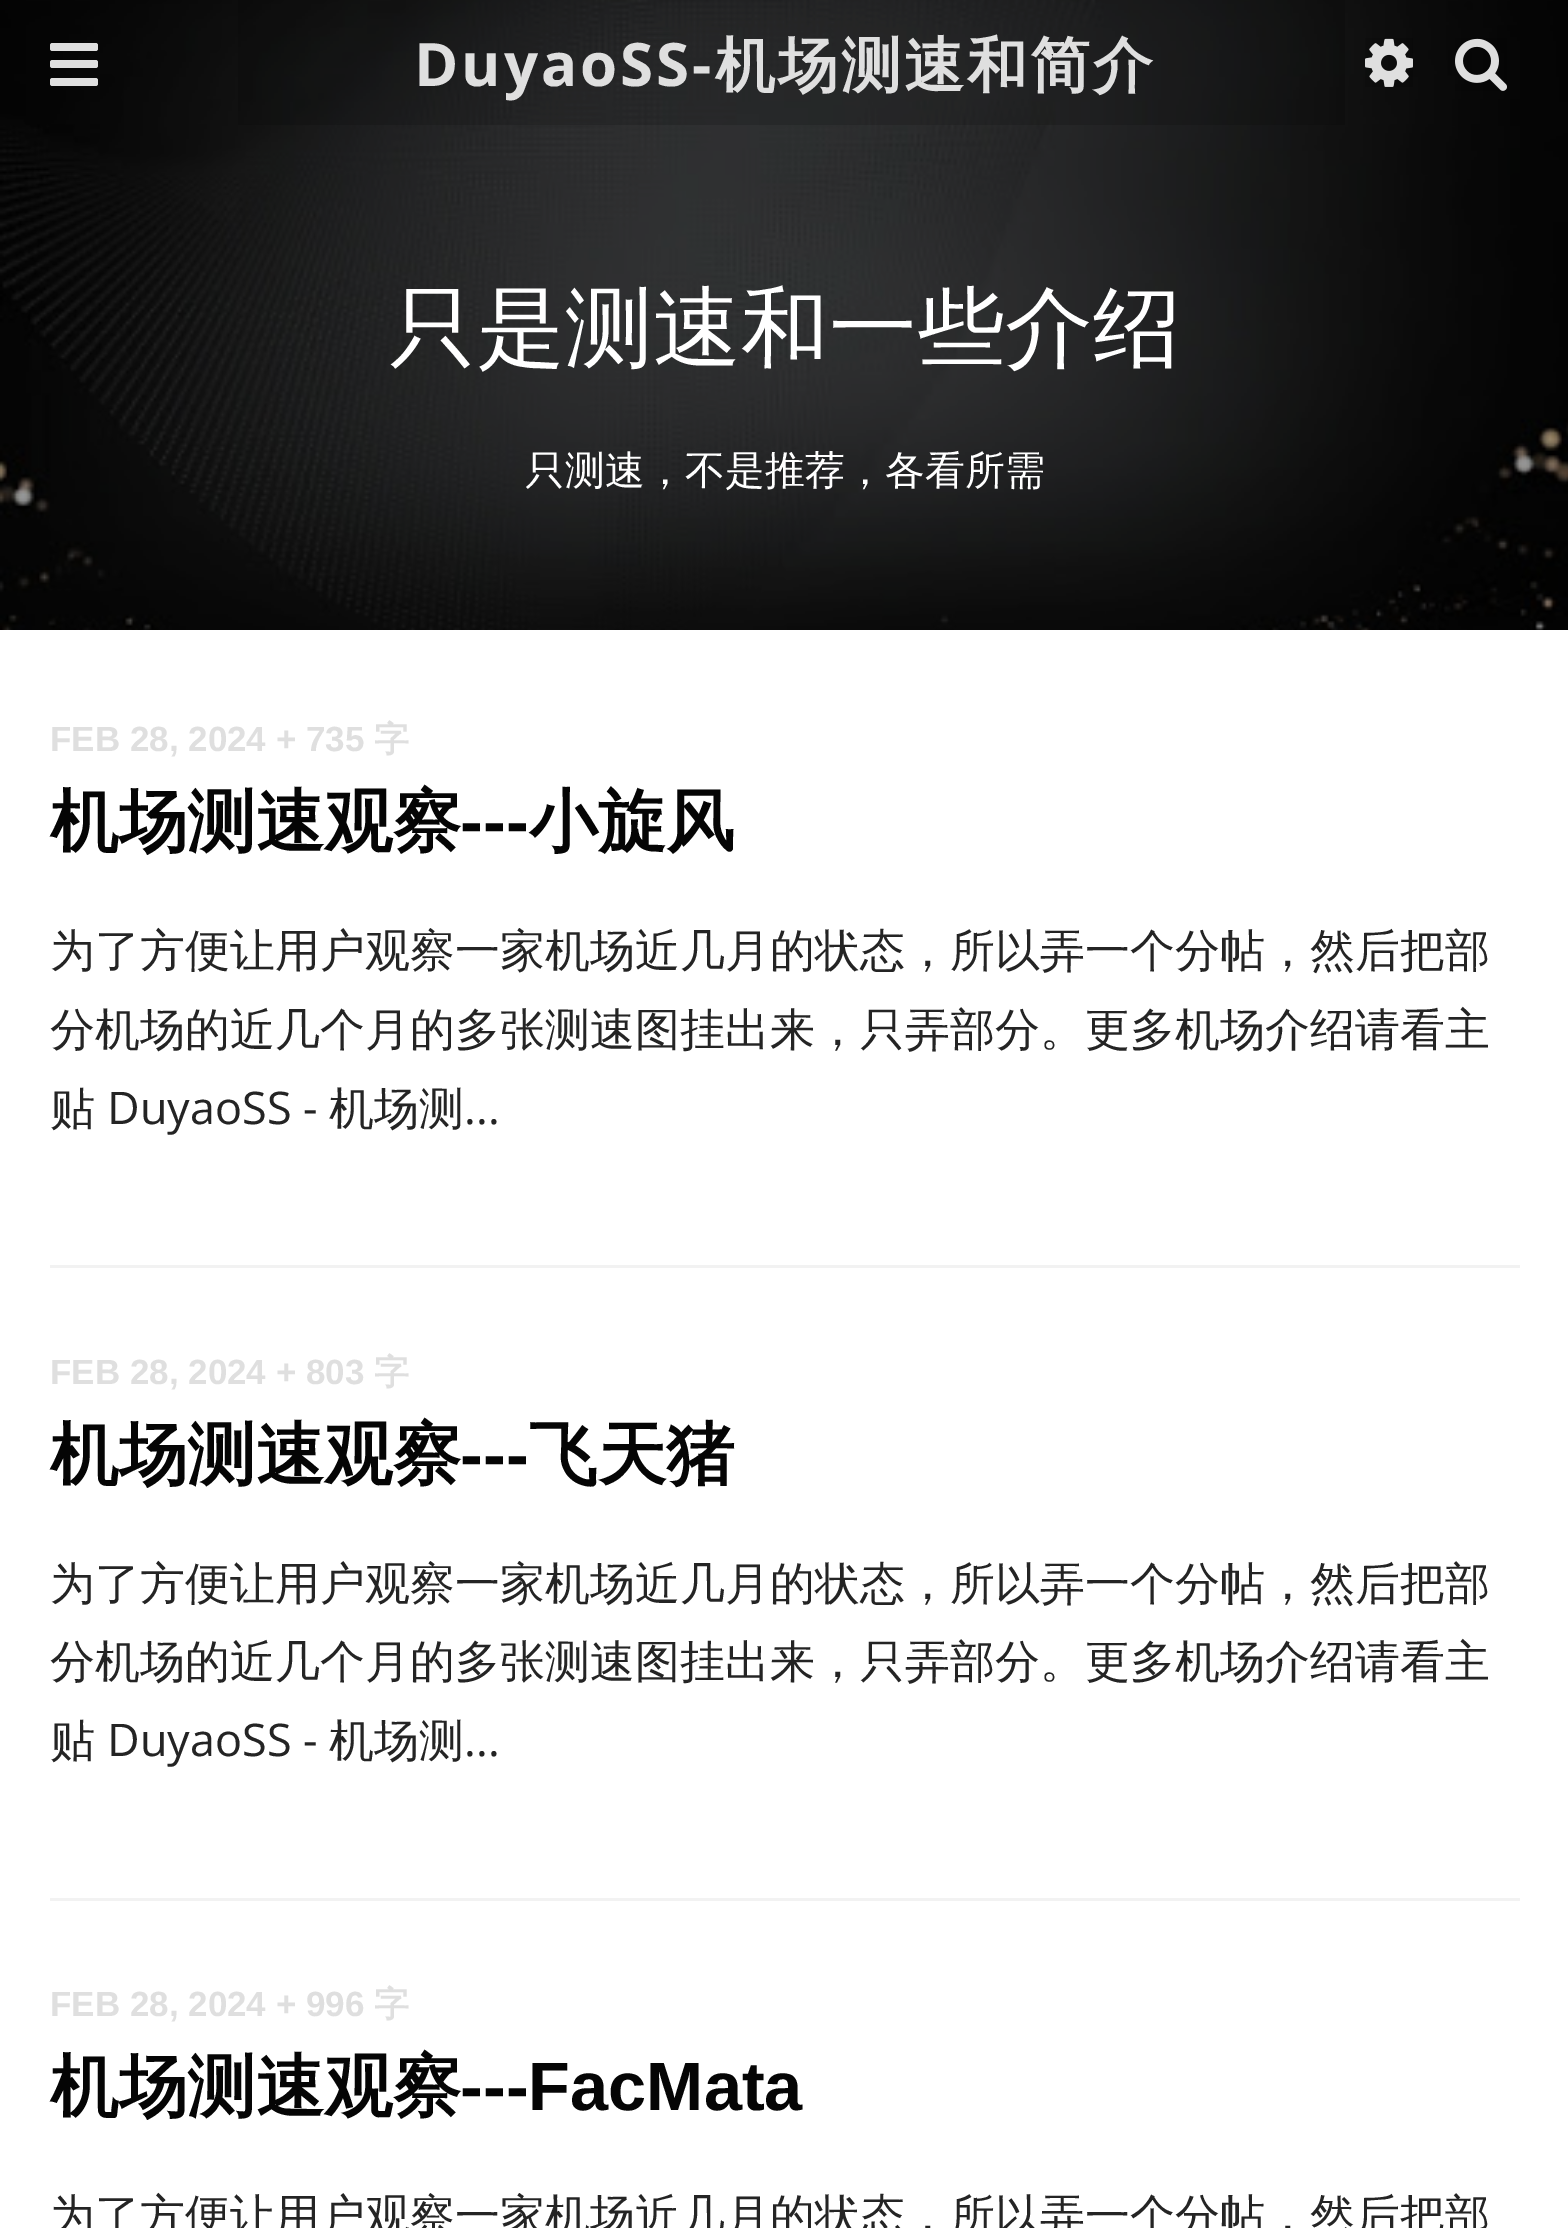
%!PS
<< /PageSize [1568 2228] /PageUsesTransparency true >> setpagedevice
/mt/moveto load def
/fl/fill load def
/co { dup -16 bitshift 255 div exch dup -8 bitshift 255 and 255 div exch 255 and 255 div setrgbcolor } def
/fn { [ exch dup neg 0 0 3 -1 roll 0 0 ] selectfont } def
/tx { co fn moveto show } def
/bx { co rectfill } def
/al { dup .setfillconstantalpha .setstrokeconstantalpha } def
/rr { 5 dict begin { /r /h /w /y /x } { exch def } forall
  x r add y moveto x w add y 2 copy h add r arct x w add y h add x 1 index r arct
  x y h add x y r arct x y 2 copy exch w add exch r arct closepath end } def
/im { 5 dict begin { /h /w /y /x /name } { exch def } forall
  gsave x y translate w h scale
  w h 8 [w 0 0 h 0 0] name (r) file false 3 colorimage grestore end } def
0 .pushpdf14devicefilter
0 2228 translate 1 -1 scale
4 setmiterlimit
0 0 1568 2228 16#FFFFFF bx
(media/3.raw) 0 0 1568 630 im
0.15 al
238 0 1107 125 16#000000 bx
1 al
16#DFDFDF co
50 60 48 8 2.5 rr fl
50 43 48 8 2.5 rr fl
50 78 48 8 2.5 rr fl
(media/1.raw) 1365 38 48 49 im
(media/2.raw) 1455 38 52 53 im
50 1265 1470 3 16#F2F2F2 bx
50 1898 1470 3 16#F2F2F2 bx
/OpenSans-Bold 60 fn
16#DFDFDF co
414 86 mt 3 0 (DuyaoSS-) ashow
/WenQuanYiZenHei-Bold 60 fn
715 86 mt 3 0 (机场测速和简介) ashow
(只是测速和一些介绍) 389 358 /WenQuanYiZenHei-Medium 88 16#FFFFFF tx
(只测速，不是推荐，各看所需) 525 484 /WenQuanYiZenHei-Medium 40 16#FFFFFF tx
(FEB 28, 2024 + 735) 50 751 /LiberationSans-Bold 35 16#DFDFDF tx
(字) 374 751 /WenQuanYiZenHei-Bold 35 16#DFDFDF tx
(机场测速观察) 50 845 /WenQuanYiZenHei-Bold 68.5 16#050505 tx
(---) 460 845 /LiberationSans-Bold 68.5 16#050505 tx
(小旋风) 529 845 /WenQuanYiZenHei-Bold 68.5 16#050505 tx
(为了方便让用户观察一家机场近几月的状态，所以弄一个分帖，然后把部) 50 966 /WenQuanYiZenHei-Medium 45 16#242424 tx
(分机场的近几个月的多张测速图挂出来，只弄部分。更多机场介绍请看主) 50 1045 /WenQuanYiZenHei-Medium 45 16#242424 tx
(贴) 50 1124 /WenQuanYiZenHei-Medium 45 16#242424 tx
(DuyaoSS -) 107 1124 /OpenSans-Regular 45 16#242424 tx
(机场测) 329 1124 /WenQuanYiZenHei-Medium 45 16#242424 tx
(...) 464 1124 /OpenSans-Regular 45 16#242424 tx
(FEB 28, 2024 + 803) 50 1384 /LiberationSans-Bold 35 16#DFDFDF tx
(字) 374 1384 /WenQuanYiZenHei-Bold 35 16#DFDFDF tx
(机场测速观察) 50 1478 /WenQuanYiZenHei-Bold 68.5 16#050505 tx
(---) 460 1478 /LiberationSans-Bold 68.5 16#050505 tx
(飞天猪) 529 1478 /WenQuanYiZenHei-Bold 68.5 16#050505 tx
(为了方便让用户观察一家机场近几月的状态，所以弄一个分帖，然后把部) 50 1599 /WenQuanYiZenHei-Medium 45 16#242424 tx
(分机场的近几个月的多张测速图挂出来，只弄部分。更多机场介绍请看主) 50 1677 /WenQuanYiZenHei-Medium 45 16#242424 tx
(贴) 50 1756 /WenQuanYiZenHei-Medium 45 16#242424 tx
(DuyaoSS -) 107 1756 /OpenSans-Regular 45 16#242424 tx
(机场测) 329 1756 /WenQuanYiZenHei-Medium 45 16#242424 tx
(...) 464 1756 /OpenSans-Regular 45 16#242424 tx
(FEB 28, 2024 + 996) 50 2016 /LiberationSans-Bold 35 16#DFDFDF tx
(字) 374 2016 /WenQuanYiZenHei-Bold 35 16#DFDFDF tx
(机场测速观察) 50 2110 /WenQuanYiZenHei-Bold 68.5 16#050505 tx
(---FacMata) 460 2110 /LiberationSans-Bold 68.5 16#050505 tx
(为了方便让用户观察一家机场近几月的状态，所以弄一个分帖，然后把部) 50 2231 /WenQuanYiZenHei-Medium 45 16#242424 tx
.poppdf14devicefilter showpage
